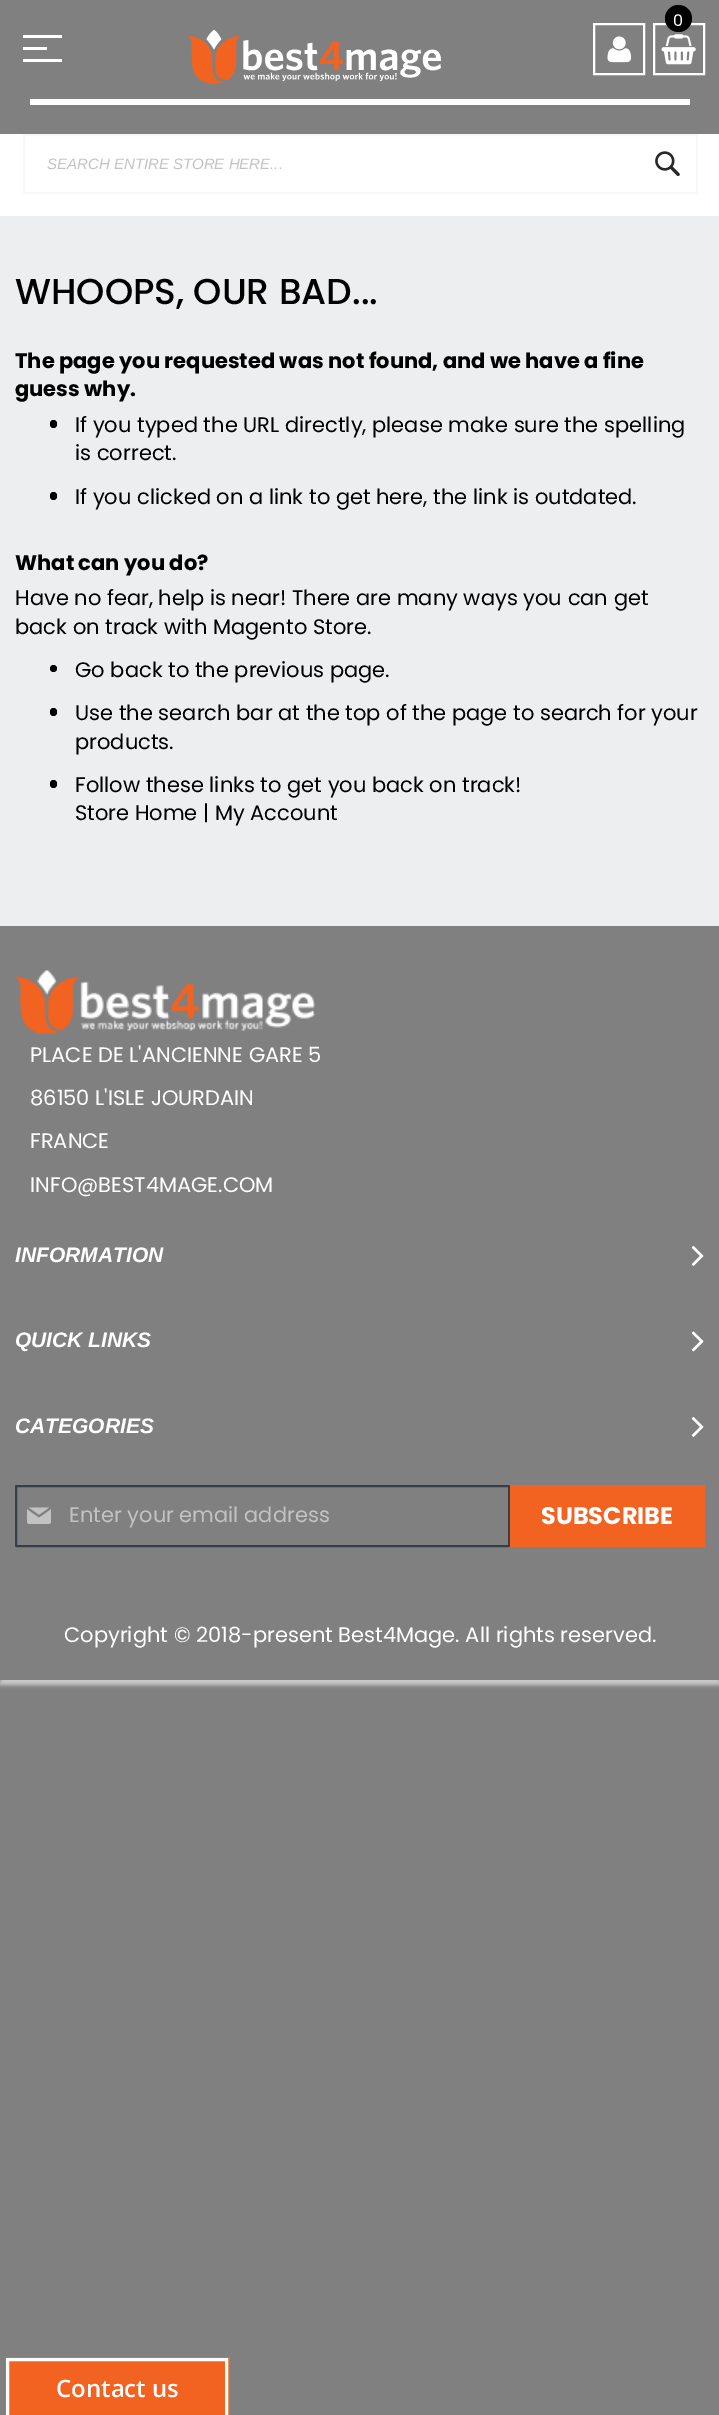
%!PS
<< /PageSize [719 2415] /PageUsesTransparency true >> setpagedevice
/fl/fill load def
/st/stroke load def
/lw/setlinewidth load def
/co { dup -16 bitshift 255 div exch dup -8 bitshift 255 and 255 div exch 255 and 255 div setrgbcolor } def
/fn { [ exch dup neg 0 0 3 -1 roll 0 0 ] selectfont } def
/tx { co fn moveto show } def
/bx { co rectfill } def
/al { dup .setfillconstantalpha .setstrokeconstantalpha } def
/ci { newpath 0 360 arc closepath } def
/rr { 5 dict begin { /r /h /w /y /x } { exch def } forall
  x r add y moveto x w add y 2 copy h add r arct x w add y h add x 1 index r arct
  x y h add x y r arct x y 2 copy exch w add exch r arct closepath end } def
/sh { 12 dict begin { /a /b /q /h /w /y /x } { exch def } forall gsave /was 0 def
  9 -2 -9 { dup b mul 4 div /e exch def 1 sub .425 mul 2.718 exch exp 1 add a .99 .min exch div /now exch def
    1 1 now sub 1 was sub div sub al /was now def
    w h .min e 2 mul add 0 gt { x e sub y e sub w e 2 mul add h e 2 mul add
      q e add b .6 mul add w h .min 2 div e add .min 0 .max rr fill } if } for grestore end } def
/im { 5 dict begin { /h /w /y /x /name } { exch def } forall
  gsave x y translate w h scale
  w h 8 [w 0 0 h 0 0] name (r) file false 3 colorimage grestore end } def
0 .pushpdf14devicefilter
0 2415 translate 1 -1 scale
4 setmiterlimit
0 0 719 2415 16#808080 bx
16#CACACA co
0 5 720 1680 0 2 1 sh
0 216 719 710 16#EDEEEF bx
0 1 719 133 16#808080 bx
16#FFFFFF co
2 lw
654 24 50 50 rectstroke
16#000000 co
678.5 18.5 13.5 ci fl
(media/1.raw) 661 34 35 31 im
16#FFFFFF co
594 24 50 50 rectstroke
(media/2.raw) 607 36 25 27 im
23 35 39 3 16#FFFFFF bx
23 59 39 3 16#FFFFFF bx
23 47 24 3 16#FFFFFF bx
(media/3.raw) 188 30 253 54 im
30 99 660 6 16#FFFFFF bx
0 134 719 82 16#FFFFFF bx
16#F8F8F8 co
24 135 673 58 rectstroke
(media/4.raw) 655 151 25 26 im
16#000000 co
50 420 7 8 3.5 rr fl
50 492 7 8 3.5 rr fl
53.5 668.5 3.5 ci fl
50 708 7 8 3.5 rr fl
50 780 7 8 3.5 rr fl
0 926 719 754 16#808080 bx
(media/5.raw) 15 970 300 64 im
(media/6.raw) 691 1246 13 20 im
(media/7.raw) 691 1331 13 21 im
(media/6.raw) 691 1417 13 20 im
16#383E48 co
16 1486 493 60 .5 rr st
(media/8.raw) 27 1507 24 17 im
510 1485 195 62 16#F26322 bx
5 2357 225 58 16#F26322 bx
16#FFFFFF co
3 lw
7.5 2359.5 219 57 rectstroke
(0) 673 26 /Poppins-Regular 16 16#FFFFFF tx
(SEARCH ENTIRE STORE HERE...) 47 169 /LiberationSans-Italic 15 16#C2C2C2 tx
(WHOOPS, OUR BAD...) 15 304 /Poppins-Medium 36 16#000000 tx
(The page you requested was not found, and we have a fine) 15 368 /Poppins-Bold 21 16#000000 tx
(guess why.) 15 396 /Poppins-Bold 21 16#000000 tx
(If you typed the URL directly, please make sure the spelling) 75 432 /Poppins-Regular 21 16#000000 tx
(is correct.) 75 460 /Poppins-Regular 21 16#000000 tx
(If you clicked on a link to get here, the link is outdated.) 75 504 /Poppins-Regular 21 16#000000 tx
(What can you do?) 15 570 /Poppins-Bold 21 16#000000 tx
(Have no fear, help is near! There are many ways you can get) 15 605 /Poppins-Regular 21 16#000000 tx
(back on track with Magento Store.) 15 634 /Poppins-Regular 21 16#000000 tx
(Go back to the previous page.) 75 677 /Poppins-Regular 21 16#000000 tx
(Use the search bar at the top of the page to search for your) 75 720 /Poppins-Regular 21 16#000000 tx
(products.) 75 749 /Poppins-Regular 21 16#000000 tx
(Follow these links to get you back on track!) 75 792 /Poppins-Regular 21 16#000000 tx
(Store Home | My Account) 75 820 /Poppins-Regular 21 16#000000 tx
(PLACE DE L'ANCIENNE GARE 5) 30 1062 /Poppins-Regular 21 16#FFFFFF tx
(86150 L'ISLE JOURDAIN) 30 1105 /Poppins-Regular 21 16#FFFFFF tx
(FRANCE) 30 1148 /Poppins-Regular 21 16#FFFFFF tx
(INFO@BEST4MAGE.COM) 30 1192 /Poppins-Regular 21 16#FFFFFF tx
(INFORMATION) 15 1262 /LiberationSans-BoldItalic 21 16#FFFFFF tx
(QUICK LINKS) 15 1347 /LiberationSans-BoldItalic 21 16#FFFFFF tx
(CATEGORIES) 15 1433 /LiberationSans-BoldItalic 21 16#FFFFFF tx
(Enter your email address) 69 1522 /Poppins-Regular 21 16#C2C2C2 tx
(SUBSCRIBE) 541 1524 /Poppins-Bold 24 16#FFFFFF tx
(Copyright © 2018-present Best4Mage. All rights reserved.) 64 1642 /Poppins-Regular 21 16#FFFFFF tx
(Contact us) 56 2397 /OpenSans-SemiBold 24 16#FFFFFF tx
.poppdf14devicefilter showpage
